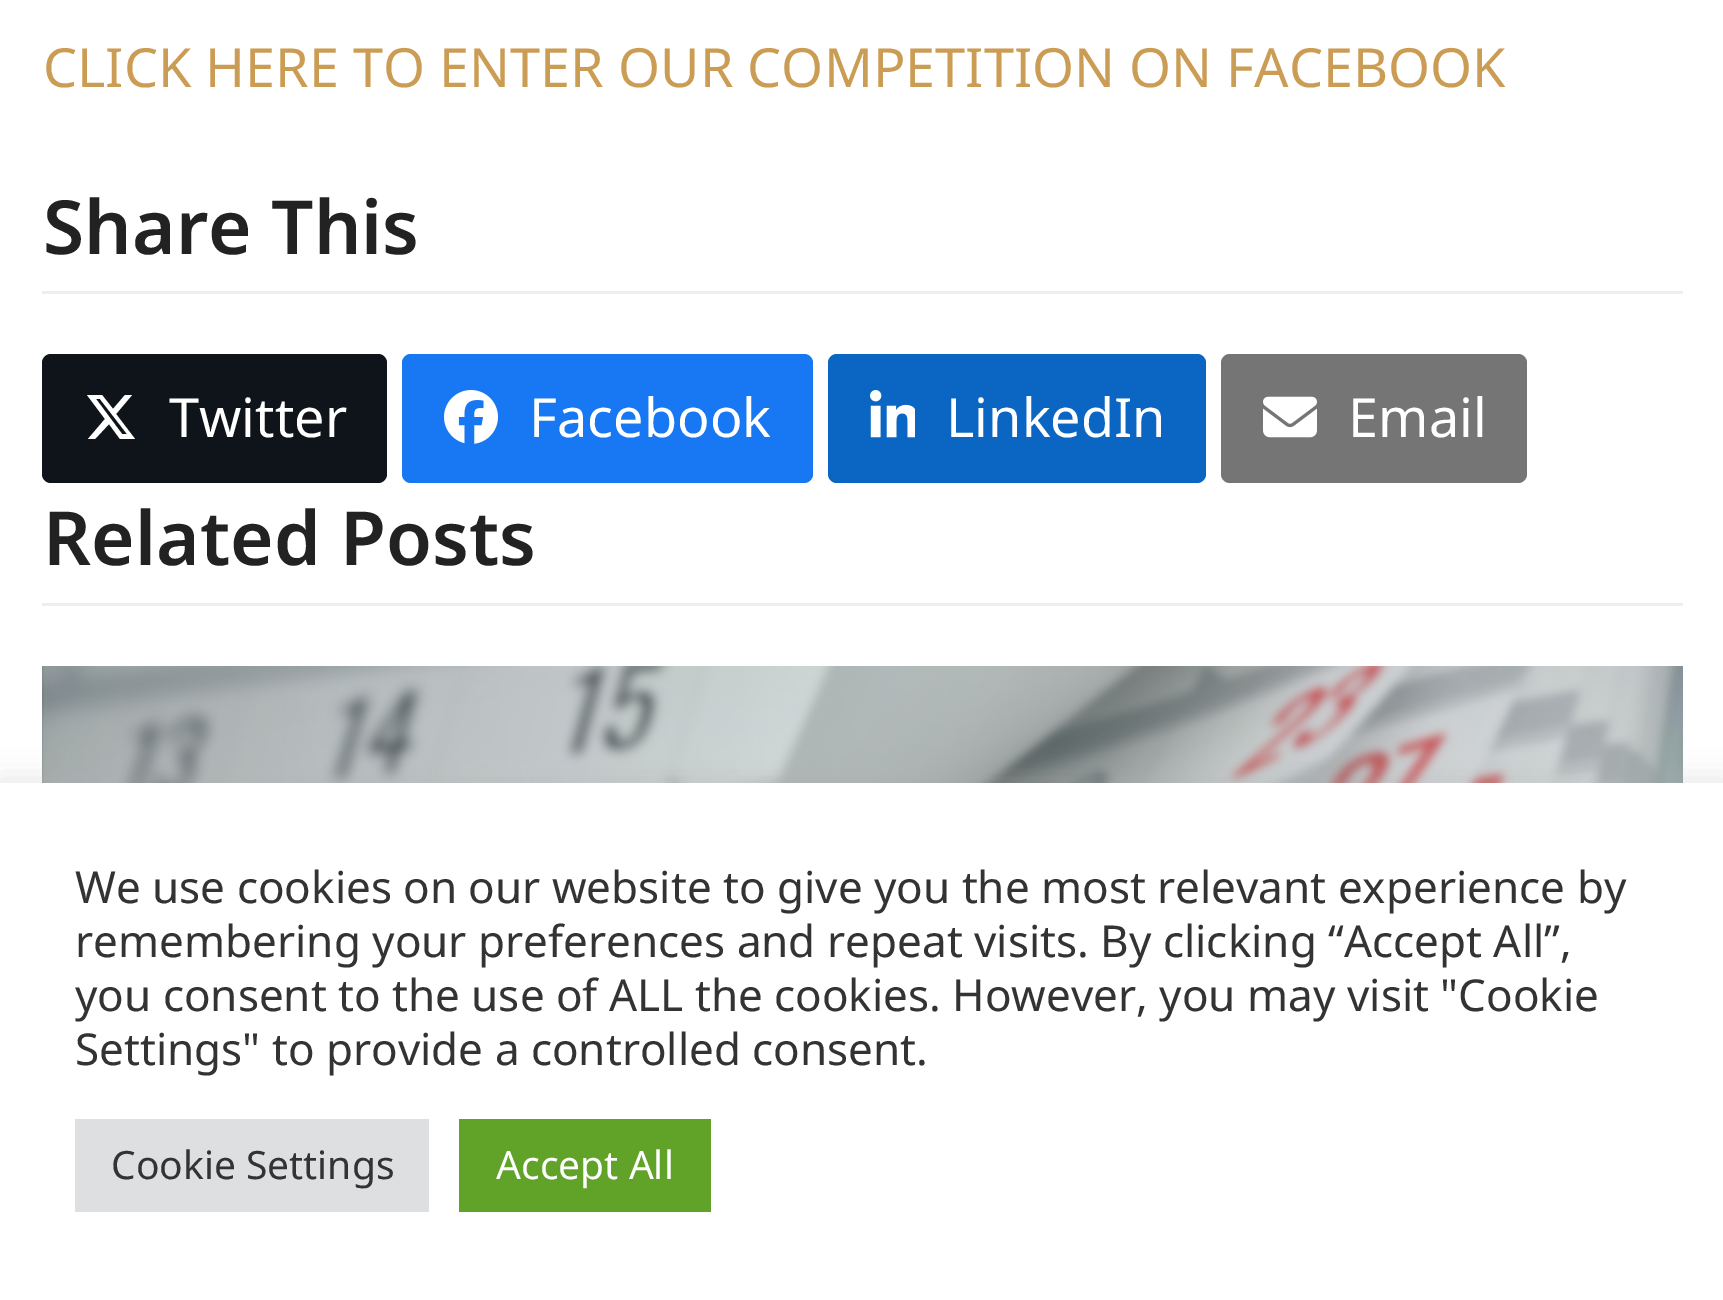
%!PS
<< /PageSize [1723 1300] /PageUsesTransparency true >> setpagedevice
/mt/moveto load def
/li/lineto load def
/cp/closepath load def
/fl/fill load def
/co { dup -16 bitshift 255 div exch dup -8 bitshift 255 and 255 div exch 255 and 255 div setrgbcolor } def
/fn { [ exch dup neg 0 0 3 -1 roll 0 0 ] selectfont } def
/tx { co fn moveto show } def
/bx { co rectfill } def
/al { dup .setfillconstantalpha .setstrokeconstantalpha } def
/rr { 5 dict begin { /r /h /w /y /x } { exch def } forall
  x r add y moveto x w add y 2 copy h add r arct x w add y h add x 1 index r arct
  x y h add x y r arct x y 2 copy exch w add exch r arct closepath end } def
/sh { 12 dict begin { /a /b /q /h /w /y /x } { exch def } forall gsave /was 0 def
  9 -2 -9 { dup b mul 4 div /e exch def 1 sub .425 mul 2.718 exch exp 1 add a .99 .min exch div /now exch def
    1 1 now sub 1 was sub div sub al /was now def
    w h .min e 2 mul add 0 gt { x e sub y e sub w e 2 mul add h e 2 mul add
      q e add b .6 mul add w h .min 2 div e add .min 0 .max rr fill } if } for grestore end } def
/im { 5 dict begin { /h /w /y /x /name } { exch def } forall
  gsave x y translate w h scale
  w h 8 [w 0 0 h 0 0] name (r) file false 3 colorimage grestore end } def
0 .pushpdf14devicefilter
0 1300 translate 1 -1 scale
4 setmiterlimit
0 0 1723 1300 16#FFFFFF bx
42 291 1641 3 16#EEEEEE bx
16#0F141A co
42 354 345 129 9 rr fl
16#FFFFFF co
125 395 mt 132 395 li 116 414 li 135 439 li 120 439 li 109 424 li 95 439 li 88 439 li 105 419 li 87 395 li 102 395 li 113 409 li cp 122 434 mt 127 434 li 100 399 li 96 399 li cp fl
16#1877F2 co
402 354 411 129 9 rr fl
(media/1.raw) 444 390 54 54 im
16#0A66C2 co
828 354 378 129 9 rr fl
(media/2.raw) 870 390 45 48 im
16#757575 co
1221 354 306 129 9 rr fl
(media/3.raw) 1263 396 54 42 im
42 603 1641 3 16#EEEEEE bx
(media/4.raw) 42 666 1641 117 im
16#ACABAB co
0 780 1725 519 0 15 .3 sh
0 783 1723 517 16#FFFFFF bx
75 1119 354 93 16#DEDFE0 bx
459 1119 252 93 16#61A229 bx
(CLICK HERE TO ENTER OUR COMPETITION ON FACEBOOK) 43 87 /NotoSans-Regular 54 16#CB9C54 tx
(Share This) 43 254 /NotoSans-SemiBold 74.75 16#222222 tx
(Twitter) 169 437 /NotoSans-Regular 54 16#FFFFFF tx
(Facebook) 529 437 /NotoSans-Regular 54 16#FFFFFF tx
(LinkedIn) 946 437 /NotoSans-Regular 54 16#FFFFFF tx
(Email) 1348 437 /NotoSans-Regular 54 16#FFFFFF tx
(Related Posts) 43 565 /NotoSans-SemiBold 74.75 16#222222 tx
(We use cookies on our website to give you the most relevant experience by) 75 903 /NotoSans-Regular 44 16#333333 tx
(remembering your preferences and repeat visits. By clicking “Accept All”,) 75 957 /NotoSans-Regular 44 16#333333 tx
(you consent to the use of ALL the cookies. However, you may visit "Cookie) 75 1011 /NotoSans-Regular 44 16#333333 tx
(Settings" to provide a controlled consent.) 75 1065 /NotoSans-Regular 44 16#333333 tx
(Cookie Settings) 111 1179 /NotoSans-Regular 39 16#333333 tx
(Accept All) 496 1179 /NotoSans-Regular 39 16#FFFFFF tx
.poppdf14devicefilter showpage
